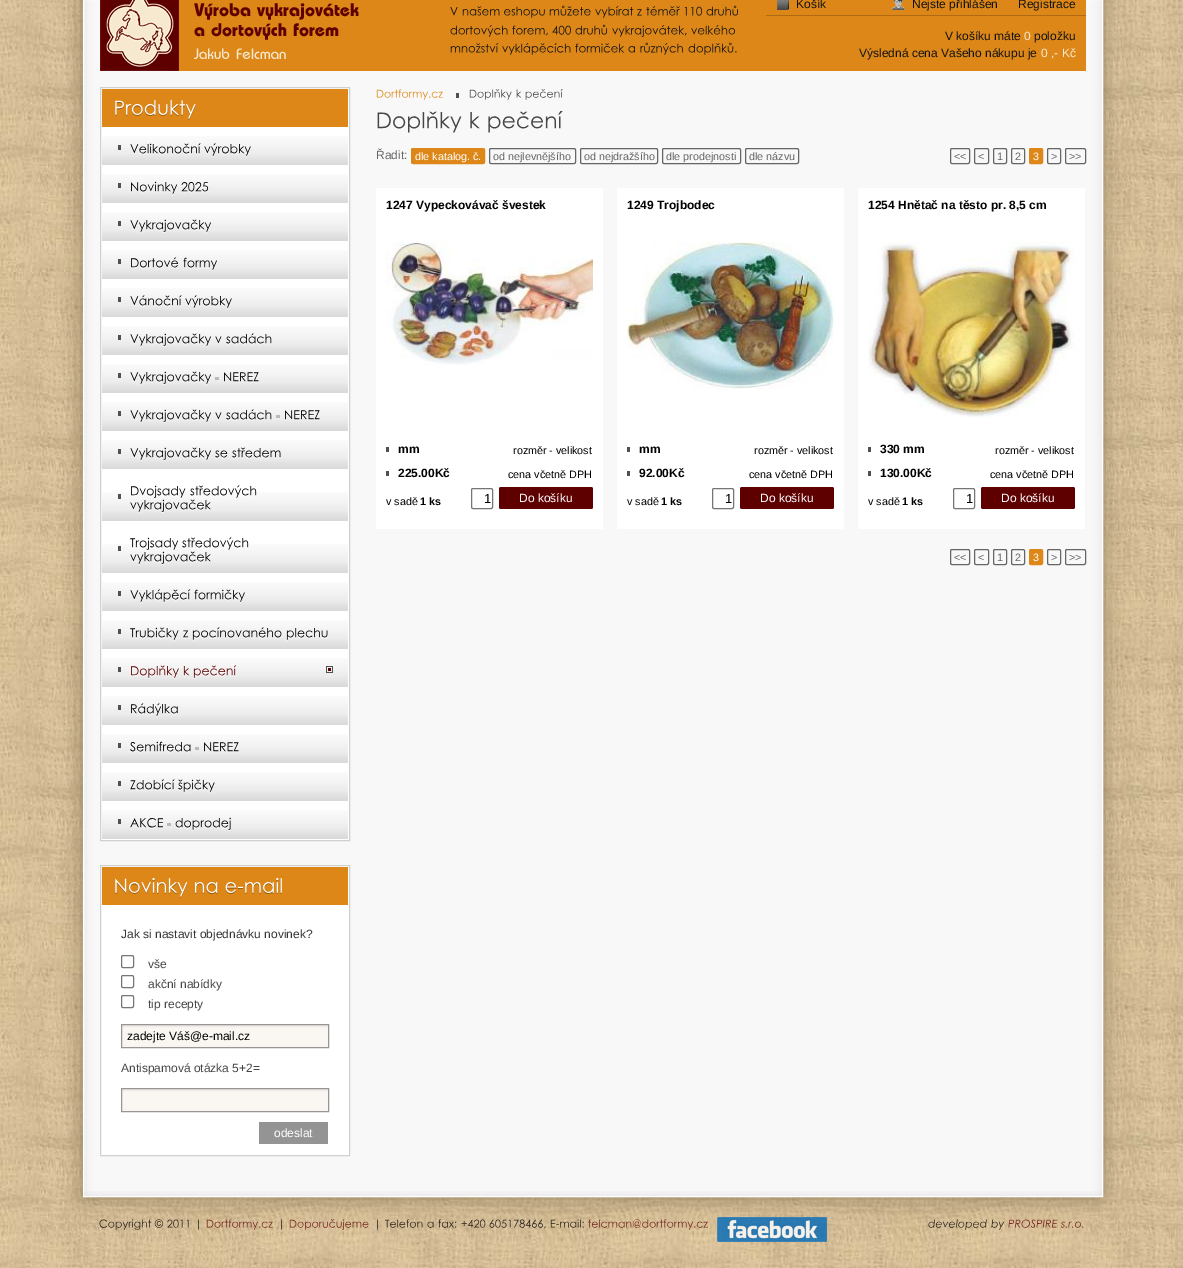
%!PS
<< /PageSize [1183 1268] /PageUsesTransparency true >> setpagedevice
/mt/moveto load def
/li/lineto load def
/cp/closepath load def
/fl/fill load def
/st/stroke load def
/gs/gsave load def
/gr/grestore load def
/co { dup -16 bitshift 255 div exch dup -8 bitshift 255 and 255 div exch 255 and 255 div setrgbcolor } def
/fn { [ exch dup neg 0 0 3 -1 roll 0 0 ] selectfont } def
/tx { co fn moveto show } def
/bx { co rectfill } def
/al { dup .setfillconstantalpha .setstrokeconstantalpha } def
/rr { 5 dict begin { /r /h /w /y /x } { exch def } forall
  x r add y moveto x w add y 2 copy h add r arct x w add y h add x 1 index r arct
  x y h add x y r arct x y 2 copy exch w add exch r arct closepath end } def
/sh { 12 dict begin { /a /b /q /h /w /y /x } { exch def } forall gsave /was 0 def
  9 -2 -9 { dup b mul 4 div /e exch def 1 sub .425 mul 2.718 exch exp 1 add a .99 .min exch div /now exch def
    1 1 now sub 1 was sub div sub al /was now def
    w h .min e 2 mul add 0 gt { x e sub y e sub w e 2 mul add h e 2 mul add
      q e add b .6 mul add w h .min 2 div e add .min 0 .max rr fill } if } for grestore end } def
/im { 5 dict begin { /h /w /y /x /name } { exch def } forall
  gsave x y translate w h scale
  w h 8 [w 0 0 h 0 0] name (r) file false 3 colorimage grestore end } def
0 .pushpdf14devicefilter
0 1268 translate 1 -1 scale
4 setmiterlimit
0 0 1183 1268 16#FFFFFF bx
(media/1.raw) 0 0 1183 1268 im
16#948260 co
83 -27 1020 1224 0 12.5 1 sh
(media/2.raw) 84 0 1018 1191 im
16#FFFFFF co
83.5 -.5 1019 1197 rectstroke
(media/3.raw) 100 0 275 71 im
375 0 711 71 16#DD8718 bx
(media/4.raw) 450 7 8 9 im
(media/5.raw) 462 6 83 12 im
(media/6.raw) 549 5 42 11 im
(media/7.raw) 595 6 39 12 im
(media/8.raw) 637 9 5 7 im
(media/9.raw) 646 6 34 10 im
(media/10.raw) 684 6 18 10 im
(media/11.raw) 706 5 32 11 im
(media/12.raw) 450 25 58 12 im
(media/13.raw) 512 25 36 11 im
(media/14.raw) 552 25 19 10 im
(media/11.raw) 575 24 32 11 im
(media/15.raw) 612 25 75 12 im
(media/16.raw) 691 25 45 10 im
(media/17.raw) 450 43 49 10 im
(media/18.raw) 502 43 69 12 im
(media/19.raw) 575 43 50 10 im
(media/20.raw) 628 46 7 7 im
(media/21.raw) 640 42 43 13 im
(media/22.raw) 688 42 49 13 im
766 15 320 1 16#B06A11 bx
(media/23.raw) 777 0 12 10 im
(media/24.raw) 892 0 13 10 im
456 93 3 5 16#505050 bx
(media/25.raw) 376 89 67 11 im
(media/26.raw) 469 89 43 11 im
(media/27.raw) 516 89 6 9 im
(media/28.raw) 525 89 38 11 im
(media/29.raw) 377 111 85 22 im
(media/30.raw) 470 112 10 17 im
(media/31.raw) 488 111 75 22 im
16#DD8718 co
411.5 148.5 73 15 1.5 rr gs fl gr
st
16#666666 co
489.5 148.5 86 15 1.5 rr st
580.5 148.5 77 15 1.5 rr st
662.5 148.5 78 15 1.5 rr st
745.5 148.5 53 15 1.5 rr st
950.5 148.5 19 15 1.5 rr st
974.5 148.5 14 15 1.5 rr st
993.5 148.5 13 15 1.5 rr st
1011.5 148.5 13 15 1.5 rr st
16#DD8718 co
1029.5 148.5 13 15 1.5 rr gs fl gr
st
16#666666 co
1047.5 148.5 13 15 1.5 rr st
1065.5 148.5 20 15 1.5 rr st
376 188 227 341 16#FFFFFF bx
(media/32.raw) 386 242 207 123 im
386 447 3 5 16#505050 bx
386 471 3 5 16#505050 bx
16#767676 co
471.5 488.5 21 20 1.5 rr st
16#5E0000 co
499 487 94 22 2 rr fl
617 188 227 341 16#FFFFFF bx
(media/33.raw) 627 242 207 147 im
627 447 3 5 16#505050 bx
627 471 3 5 16#505050 bx
16#767676 co
712.5 488.5 21 20 1.5 rr st
16#5E0000 co
740 487 94 22 2 rr fl
858 188 227 341 16#FFFFFF bx
(media/34.raw) 868 242 207 176 im
868 447 3 5 16#505050 bx
868 471 3 5 16#505050 bx
16#767676 co
953.5 488.5 21 20 1.5 rr st
16#5E0000 co
981 487 94 22 2 rr fl
16#666666 co
950.5 549.5 19 15 1.5 rr st
974.5 549.5 14 15 1.5 rr st
993.5 549.5 13 15 1.5 rr st
1011.5 549.5 13 15 1.5 rr st
16#DD8718 co
1029.5 549.5 13 15 1.5 rr gs fl gr
st
16#666666 co
1047.5 549.5 13 15 1.5 rr st
1065.5 549.5 20 15 1.5 rr st
16#FFFFFF co
100.5 87.5 mt 349.5 87.5 li 349.5 840.5 li 100.5 840.5 li cp gs fl gr
16#D0D0D0 co
st
102 89 246 38 16#DD8718 bx
(media/35.raw) 115 100 81 20 im
(media/36.raw) 102 136 246 29 im
118 145 3 5 16#505050 bx
(media/37.raw) 130 143 71 12 im
(media/38.raw) 204 143 47 14 im
(media/36.raw) 102 174 246 29 im
118 183 3 5 16#505050 bx
(media/39.raw) 131 181 47 14 im
(media/40.raw) 181 182 28 11 im
(media/36.raw) 102 212 246 29 im
118 221 3 5 16#505050 bx
(media/41.raw) 130 219 81 14 im
(media/36.raw) 102 250 246 29 im
118 259 3 5 16#505050 bx
(media/42.raw) 131 257 47 12 im
(media/43.raw) 183 257 34 14 im
(media/36.raw) 102 288 246 29 im
118 297 3 5 16#505050 bx
(media/44.raw) 130 295 52 12 im
(media/38.raw) 185 295 47 14 im
(media/36.raw) 102 326 246 29 im
118 335 3 5 16#505050 bx
(media/41.raw) 130 333 81 14 im
(media/45.raw) 215 336 7 7 im
(media/46.raw) 226 333 46 12 im
(media/36.raw) 102 364 246 29 im
118 373 3 5 16#505050 bx
(media/41.raw) 130 371 81 14 im
215 377 4 3 16#BABABA bx
(media/47.raw) 224 372 35 11 im
(media/36.raw) 102 402 246 29 im
118 411 3 5 16#505050 bx
(media/41.raw) 130 409 81 14 im
(media/45.raw) 215 412 7 7 im
(media/46.raw) 226 409 46 12 im
276 415 4 3 16#BABABA bx
(media/47.raw) 285 410 35 11 im
(media/36.raw) 102 440 246 29 im
118 449 3 5 16#505050 bx
(media/41.raw) 130 447 81 14 im
(media/48.raw) 215 450 13 9 im
(media/49.raw) 232 447 49 12 im
(media/36.raw) 102 492 246 29 im
118 494 3 5 16#505050 bx
(media/50.raw) 131 485 55 14 im
(media/51.raw) 190 485 67 13 im
(media/52.raw) 130 499 81 14 im
(media/36.raw) 102 544 246 29 im
118 546 3 5 16#505050 bx
(media/53.raw) 130 537 49 14 im
(media/51.raw) 182 537 67 13 im
(media/52.raw) 130 551 81 14 im
(media/36.raw) 102 582 246 29 im
118 591 3 5 16#505050 bx
(media/54.raw) 130 589 61 14 im
(media/55.raw) 194 589 51 14 im
(media/36.raw) 102 620 246 29 im
118 629 3 5 16#505050 bx
(media/56.raw) 130 627 49 14 im
(media/57.raw) 183 630 6 9 im
(media/58.raw) 192 627 90 14 im
(media/59.raw) 286 628 42 13 im
(media/36.raw) 102 658 246 29 im
118 667 3 5 16#505050 bx
(media/60.raw) 131 665 48 14 im
(media/61.raw) 183 666 7 11 im
(media/62.raw) 193 665 44 14 im
(media/63.raw) 326 666 7 7 im
(media/36.raw) 102 696 246 29 im
118 705 3 5 16#505050 bx
(media/64.raw) 131 703 47 14 im
(media/36.raw) 102 734 246 29 im
118 743 3 5 16#505050 bx
(media/65.raw) 130 741 61 12 im
195 747 4 3 16#BABABA bx
(media/47.raw) 204 742 35 11 im
(media/36.raw) 102 772 246 29 im
118 781 3 5 16#505050 bx
(media/66.raw) 130 779 45 12 im
(media/67.raw) 178 779 37 14 im
(media/36.raw) 102 810 246 29 im
118 819 3 5 16#505050 bx
(media/68.raw) 130 818 33 11 im
167 823 4 3 16#BABABA bx
(media/69.raw) 175 817 56 14 im
16#FFFFFF co
100.5 865.5 mt 349.5 865.5 li 349.5 1155.5 li 100.5 1155.5 li cp gs fl gr
16#D0D0D0 co
st
102 867 246 38 16#DD8718 bx
(media/70.raw) 115 878 73 20 im
(media/71.raw) 195 882 23 12 im
(media/72.raw) 225 878 57 16 im
16#767676 co
121.5 955.5 12 12 1.5 rr st
121.5 975.5 12 12 1.5 rr st
121.5 995.5 12 12 1.5 rr st
(media/73.raw) 122 1025 206 22 im
16#969696 co
121.5 1024.5 207 23 rectstroke
(media/73.raw) 122 1089 206 22 im
121.5 1088.5 207 23 rectstroke
259 1122 69 22 16#949494 bx
(media/74.raw) 84 1191 1018 5 im
(media/75.raw) 99 1219 53 11 im
(media/76.raw) 154 1219 10 9 im
(media/77.raw) 167 1219 22 9 im
(media/78.raw) 198 1219 1 11 im
(media/79.raw) 206 1219 67 11 im
(media/80.raw) 281 1219 1 11 im
(media/81.raw) 289 1219 80 11 im
(media/82.raw) 377 1219 1 11 im
(media/83.raw) 385 1219 38 9 im
(media/84.raw) 427 1221 7 7 im
(media/85.raw) 438 1219 19 9 im
(media/86.raw) 461 1219 25 9 im
(media/87.raw) 489 1219 57 10 im
(media/88.raw) 550 1219 34 9 im
(media/89.raw) 588 1219 120 11 im
(media/90.raw) 717 1217 110 25 im
(media/91.raw) 928 1219 59 11 im
(media/92.raw) 991 1219 14 11 im
(media/93.raw) 1008 1219 50 9 im
(media/94.raw) 1061 1221 23 7 im
(Košík) 796 8 /LiberationSans-Regular 12 16#121212 tx
(Nejste přihlášen) 912 8 /LiberationSans-Regular 12 16#121212 tx
(Registrace) 1018 8 /LiberationSans-Regular 12 16#121212 tx
(V košíku máte) 945 40 /LiberationSans-Regular 12 16#121212 tx
(0) 1024 40 /LiberationSans-Regular 12 16#F7E9D0 tx
(položku) 1034 40 /LiberationSans-Regular 12 16#121212 tx
(Výsledná cena Vašeho nákupu je) 859 57 /LiberationSans-Regular 12 16#121212 tx
(0 ,- Kč) 1041 57 /LiberationSans-Regular 12 16#F7E9D0 tx
(Řadit:) 376 159 /LiberationSans-Regular 12 16#666666 tx
(dle katalog. č.) 415 160 /LiberationSans-Regular 10.75 16#FFFFFF tx
(od nejlevnějšího) 493 160 /LiberationSans-Regular 10.75 16#666666 tx
(od nejdražšího) 584 160 /LiberationSans-Regular 10.75 16#666666 tx
(dle prodejnosti) 666 160 /LiberationSans-Regular 10.75 16#666666 tx
(dle názvu) 749 160 /LiberationSans-Regular 10.75 16#666666 tx
(<<) 954 160 /LiberationSans-Regular 10.75 16#666666 tx
(<) 978 160 /LiberationSans-Regular 10.75 16#666666 tx
(1) 997 160 /LiberationSans-Regular 10.75 16#666666 tx
(2) 1015 160 /LiberationSans-Regular 10.75 16#666666 tx
(3) 1033 160 /LiberationSans-Regular 10.75 16#FFFFFF tx
(>) 1051 160 /LiberationSans-Regular 10.75 16#666666 tx
(>>) 1069 160 /LiberationSans-Regular 10.75 16#666666 tx
(1247 Vypeckovávač švestek) 386 209 /LiberationSans-Bold 12 16#000000 tx
(mm) 398 453 /LiberationSans-Bold 12 16#000000 tx
(rozměr - velikost) 513 454 /LiberationSans-Regular 10.75 16#000000 tx
(225.00Kč) 398 477 /LiberationSans-Bold 12 16#000000 tx
(cena včetně DPH) 508 478 /LiberationSans-Regular 10.75 16#000000 tx
(v sadě) 386 505 /LiberationSans-Regular 10.75 16#000000 tx
(1 ks) 420 505 /LiberationSans-Bold 10.75 16#000000 tx
(1) 484 503 /LiberationSans-Regular 13 16#000000 tx
(Do košíku) 519 502 /LiberationSans-Regular 12 16#FFFFFF tx
(1249 Trojbodec) 627 209 /LiberationSans-Bold 12 16#000000 tx
(mm) 639 453 /LiberationSans-Bold 12 16#000000 tx
(rozměr - velikost) 754 454 /LiberationSans-Regular 10.75 16#000000 tx
(92.00Kč) 639 477 /LiberationSans-Bold 12 16#000000 tx
(cena včetně DPH) 749 478 /LiberationSans-Regular 10.75 16#000000 tx
(v sadě) 627 505 /LiberationSans-Regular 10.75 16#000000 tx
(1 ks) 661 505 /LiberationSans-Bold 10.75 16#000000 tx
(1) 725 503 /LiberationSans-Regular 13 16#000000 tx
(Do košíku) 760 502 /LiberationSans-Regular 12 16#FFFFFF tx
(1254 Hnětač na těsto pr. 8,5 cm) 868 209 /LiberationSans-Bold 12 16#000000 tx
(330 mm) 880 453 /LiberationSans-Bold 12 16#000000 tx
(rozměr - velikost) 995 454 /LiberationSans-Regular 10.75 16#000000 tx
(130.00Kč) 880 477 /LiberationSans-Bold 12 16#000000 tx
(cena včetně DPH) 990 478 /LiberationSans-Regular 10.75 16#000000 tx
(v sadě) 868 505 /LiberationSans-Regular 10.75 16#000000 tx
(1 ks) 902 505 /LiberationSans-Bold 10.75 16#000000 tx
(1) 966 503 /LiberationSans-Regular 13 16#000000 tx
(Do košíku) 1001 502 /LiberationSans-Regular 12 16#FFFFFF tx
(<<) 954 561 /LiberationSans-Regular 10.75 16#666666 tx
(<) 978 561 /LiberationSans-Regular 10.75 16#666666 tx
(1) 997 561 /LiberationSans-Regular 10.75 16#666666 tx
(2) 1015 561 /LiberationSans-Regular 10.75 16#666666 tx
(3) 1033 561 /LiberationSans-Regular 10.75 16#FFFFFF tx
(>) 1051 561 /LiberationSans-Regular 10.75 16#666666 tx
(>>) 1069 561 /LiberationSans-Regular 10.75 16#666666 tx
(Jak si nastavit objednávku novinek?) 121 938 /LiberationSans-Regular 12 16#333333 tx
(vše) 148 968 /LiberationSans-Regular 12 16#464646 tx
(akční nabídky) 148 988 /LiberationSans-Regular 12 16#464646 tx
(tip recepty) 148 1008 /LiberationSans-Regular 12 16#464646 tx
(zadejte Váš@e-mail.cz) 127 1040 /LiberationSans-Regular 12 16#000000 tx
(Antispamová otázka 5+2=) 121 1072 /LiberationSans-Regular 12 16#464646 tx
(odeslat) 274 1137 /LiberationSans-Regular 12 16#FFFFFF tx
.poppdf14devicefilter showpage
